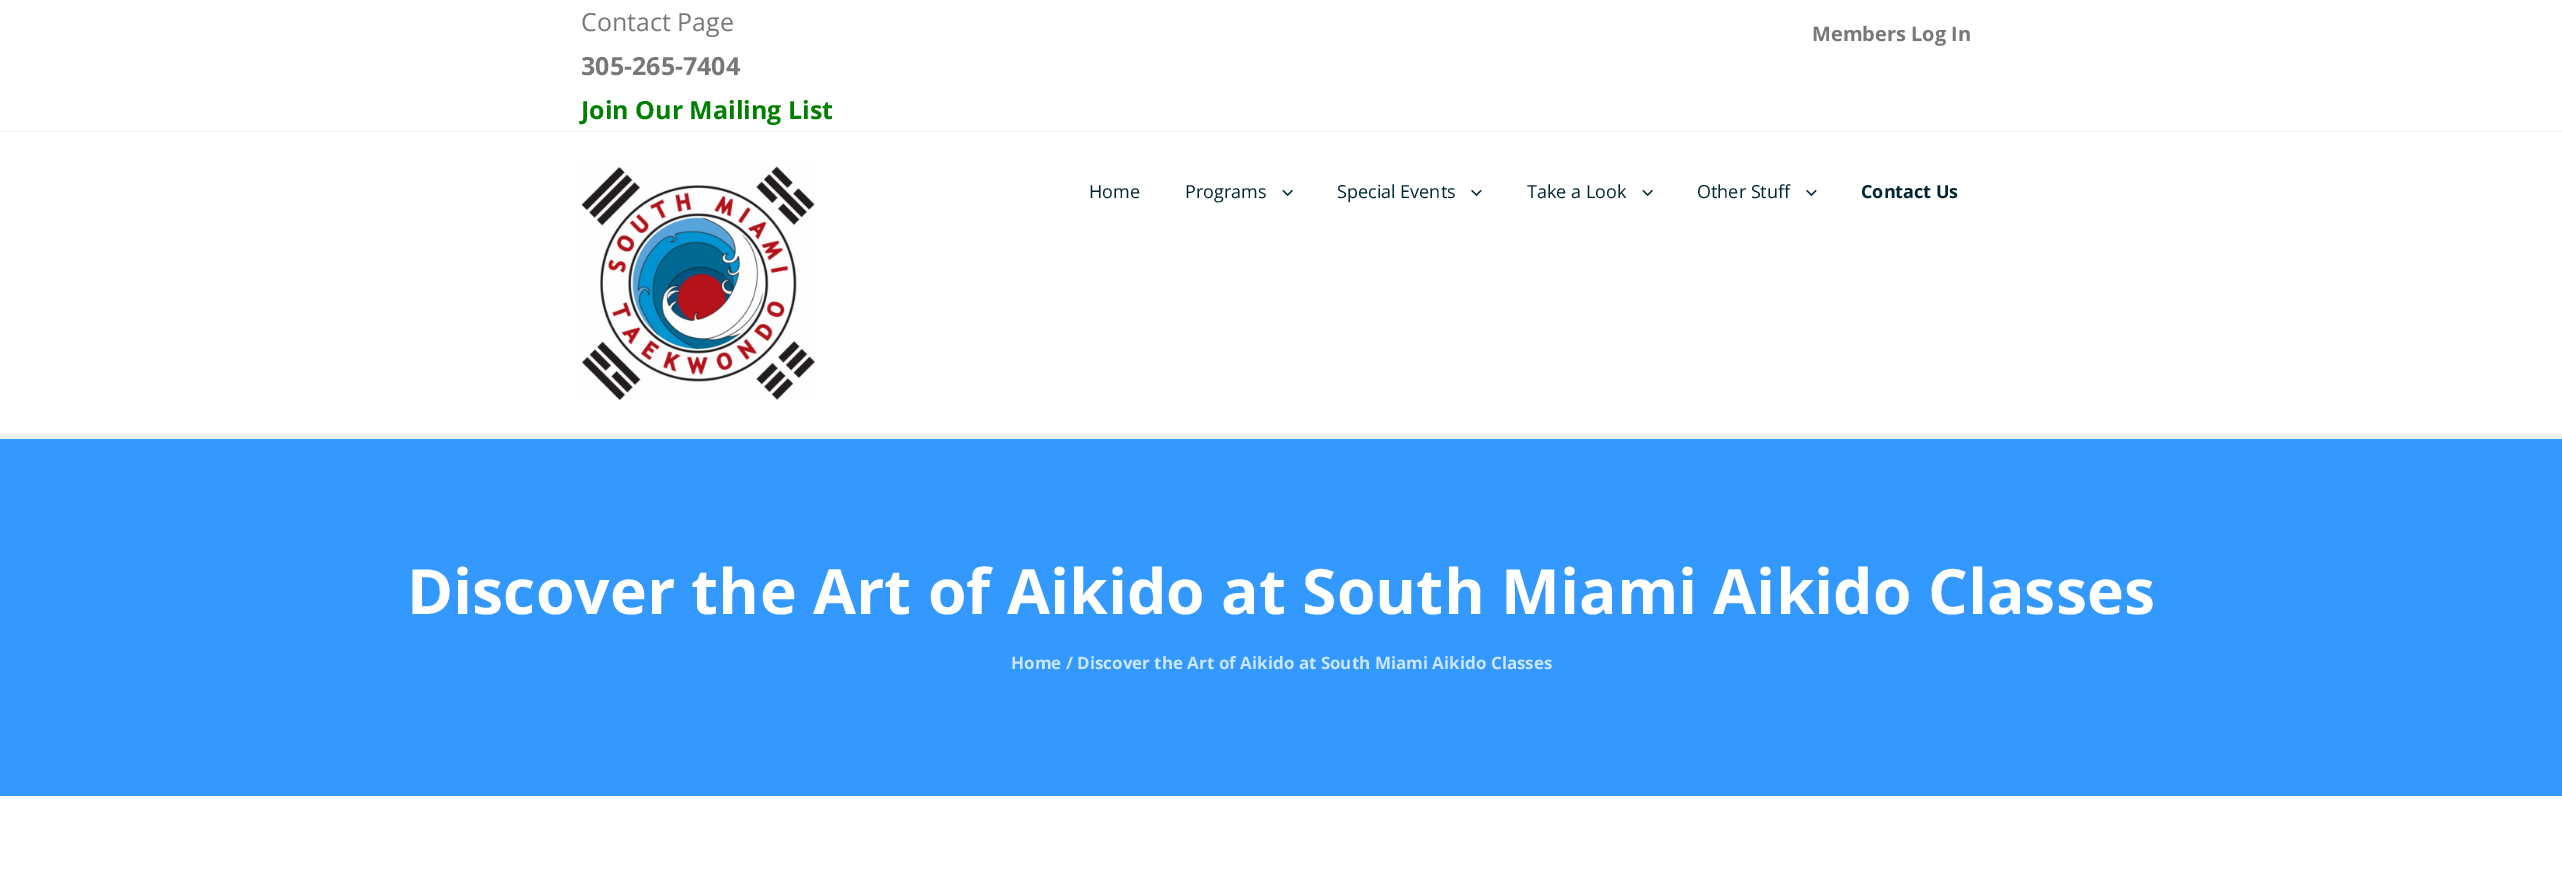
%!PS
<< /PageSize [2562 876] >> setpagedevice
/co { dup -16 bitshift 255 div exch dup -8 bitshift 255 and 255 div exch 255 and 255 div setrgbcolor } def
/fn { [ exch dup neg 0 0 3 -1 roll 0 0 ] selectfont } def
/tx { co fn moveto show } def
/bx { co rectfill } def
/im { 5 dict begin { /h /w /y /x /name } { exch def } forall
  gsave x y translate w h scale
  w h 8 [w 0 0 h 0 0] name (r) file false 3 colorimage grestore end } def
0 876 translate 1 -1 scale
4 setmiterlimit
0 0 2562 876 16#FFFFFF bx
0 131 2562 1 16#F2F2F2 bx
0 434 2562 5 16#F2F2F2 bx
(media/1.raw) 581 166 234 234 im
(media/2.raw) 1282 190 11 7 im
(media/3.raw) 1471 190 11 7 im
(media/2.raw) 1642 190 11 7 im
(media/3.raw) 1806 190 11 7 im
0 439 2562 357 16#3399FF bx
(Contact Page) 581 31 /OpenSans-Regular 25 16#777777 tx
(305-265-7404) 581 75 /OpenSans-Bold 25 16#777777 tx
(Join Our Mailing List) 581 119 /OpenSans-Bold 25 16#008000 tx
(Members Log In) 1812 41 /OpenSans-Bold 20 16#777777 tx
(Home) 1089 198 /OpenSans-Regular 18 16#002633 tx
(Programs) 1185 198 /OpenSans-Regular 18 16#002633 tx
(Special Events) 1337 198 /OpenSans-Regular 18 16#002633 tx
(Take a Look) 1527 198 /OpenSans-Regular 18 16#002633 tx
(Other Stuff) 1697 198 /OpenSans-Regular 18 16#002633 tx
(Contact Us) 1861 198 /OpenSans-Bold 18 16#002633 tx
(Discover the Art of Aikido at South Miami Aikido Classes) 407 614 /OpenSans-Bold 62.5 16#FFFFFF tx
(Home / Discover the Art of Aikido at South Miami Aikido Classes) 1011 669 /OpenSans-Bold 17 16#CCE6FF tx
showpage
